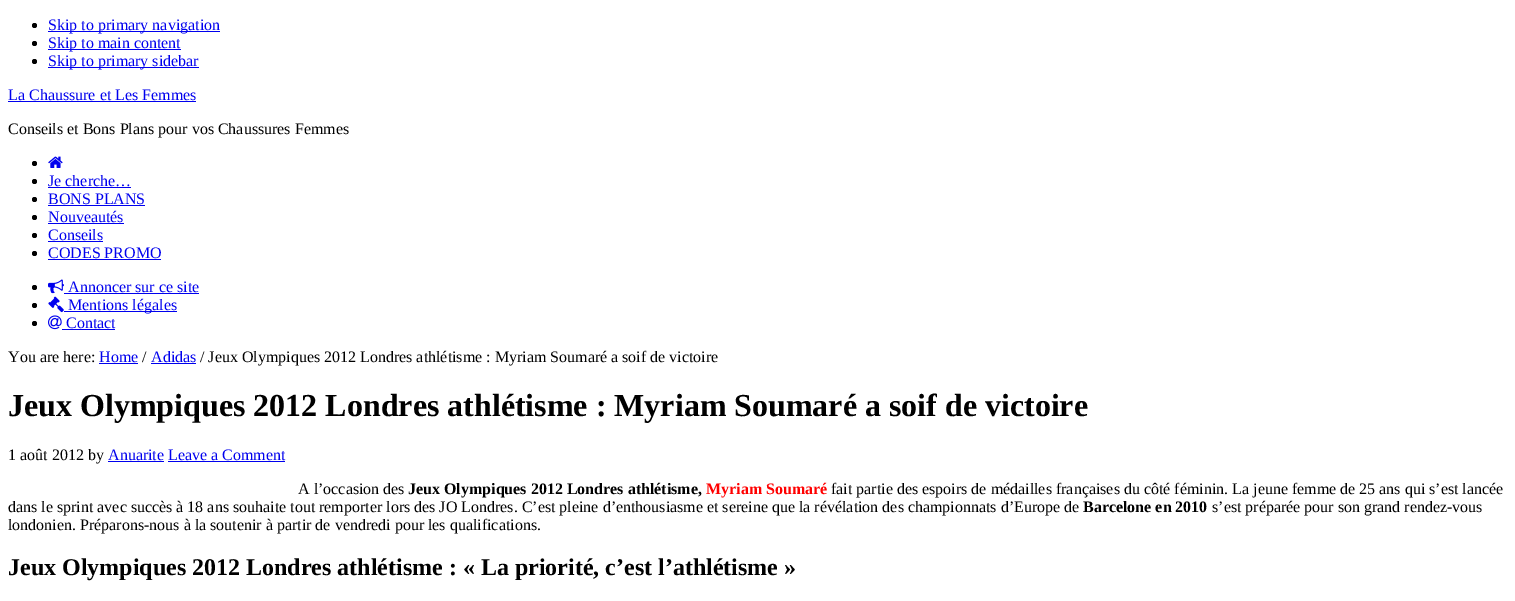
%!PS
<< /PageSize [1515 601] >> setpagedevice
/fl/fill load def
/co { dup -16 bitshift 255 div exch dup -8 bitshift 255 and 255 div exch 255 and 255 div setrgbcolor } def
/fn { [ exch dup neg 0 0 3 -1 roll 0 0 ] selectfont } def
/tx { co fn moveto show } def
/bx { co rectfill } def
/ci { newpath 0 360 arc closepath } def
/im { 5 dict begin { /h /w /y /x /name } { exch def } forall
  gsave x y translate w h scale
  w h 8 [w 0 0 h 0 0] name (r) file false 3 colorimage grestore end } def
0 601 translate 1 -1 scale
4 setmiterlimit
0 0 1515 601 16#FFFFFF bx
16#000000 co
34.5 25.5 2.5 ci fl
48 31 172 1 16#0000EE bx
16#000000 co
34.5 43.5 2.5 ci fl
48 49 133 1 16#0000EE bx
16#000000 co
34.5 61.5 2.5 ci fl
48 67 151 1 16#0000EE bx
8 101 188 1 16#0000EE bx
16#000000 co
34.5 163.5 2.5 ci fl
(media/1.raw) 48 156 15 12 im
34.5 181.5 2.5 ci fl
48 187 83 1 16#0000EE bx
16#000000 co
34.5 199.5 2.5 ci fl
48 205 97 1 16#0000EE bx
16#000000 co
34.5 217.5 2.5 ci fl
48 223 76 1 16#0000EE bx
16#000000 co
34.5 235.5 2.5 ci fl
48 241 55 1 16#0000EE bx
16#000000 co
34.5 253.5 2.5 ci fl
48 259 113 1 16#0000EE bx
16#000000 co
34.5 287.5 2.5 ci fl
(media/2.raw) 48 279 16 15 im
64 293 135 1 16#0000EE bx
16#000000 co
34.5 305.5 2.5 ci fl
(media/3.raw) 48 296 16 17 im
64 311 113 1 16#0000EE bx
16#000000 co
34.5 323.5 2.5 ci fl
(media/4.raw) 48 315 14 15 im
62 329 53 1 16#0000EE bx
99 363 39 1 16#0000EE bx
151 363 45 1 16#0000EE bx
108 461 56 1 16#0000EE bx
168 461 117 1 16#0000EE bx
(Skip to primary navigation) 48 30 /LiberationSerif-Regular 16 16#0000EE tx
(Skip to main content) 48 48 /LiberationSerif-Regular 16 16#0000EE tx
(Skip to primary sidebar) 48 66 /LiberationSerif-Regular 16 16#0000EE tx
(La Chaussure et Les Femmes) 8 100 /LiberationSerif-Regular 16 16#0000EE tx
(Conseils et Bons Plans pour vos Chaussures Femmes) 8 134 /LiberationSerif-Regular 16 16#000000 tx
(Je cherche…) 48 186 /LiberationSerif-Regular 16 16#0000EE tx
(BONS PLANS) 48 204 /LiberationSerif-Regular 16 16#0000EE tx
(Nouveautés) 48 222 /LiberationSerif-Regular 16 16#0000EE tx
(Conseils) 48 240 /LiberationSerif-Regular 16 16#0000EE tx
(CODES PROMO) 48 258 /LiberationSerif-Regular 16 16#0000EE tx
(Annoncer sur ce site) 68 292 /LiberationSerif-Regular 16 16#0000EE tx
(Mentions légales) 68 310 /LiberationSerif-Regular 16 16#0000EE tx
(Contact) 66 328 /LiberationSerif-Regular 16 16#0000EE tx
(You are here:) 8 362 /LiberationSerif-Regular 16 16#000000 tx
(Home) 99 362 /LiberationSerif-Regular 16 16#0000EE tx
(/) 142 362 /LiberationSerif-Regular 16 16#000000 tx
(Adidas) 151 362 /LiberationSerif-Regular 16 16#0000EE tx
(/ Jeux Olympiques 2012 Londres athlétisme : Myriam Soumaré a soif de victoire) 200 362 /LiberationSerif-Regular 16 16#000000 tx
(Jeux Olympiques 2012 Londres athlétisme : Myriam Soumaré a soif de victoire) 8 416 /LiberationSerif-Bold 32 16#000000 tx
(1 août 2012 by) 8 460 /LiberationSerif-Regular 16 16#000000 tx
(Anuarite Leave a Comment) 108 460 /LiberationSerif-Regular 16 16#0000EE tx
(A l’occasion des) 298 494 /LiberationSerif-Regular 16 16#000000 tx
(Jeux Olympiques 2012 Londres athlétisme,) 408 494 /LiberationSerif-Bold 16 16#000000 tx
(Myriam Soumaré) 706 494 /LiberationSerif-Bold 16 16#FF0000 tx
(fait partie des espoirs de médailles françaises du côté féminin. La jeune femme de 25 ans qui s’est lancée) 831 494 /LiberationSerif-Regular 16 16#000000 tx
(dans le sprint avec succès à 18 ans souhaite tout remporter lors des JO Londres. C’est pleine d’enthousiasme et sereine que la révélation des championnats d’Europe de) 8 512 /LiberationSerif-Regular 16 16#000000 tx
(Barcelone en 2010) 1083 512 /LiberationSerif-Bold 16 16#000000 tx
(s’est préparée pour son grand rendez-vous) 1212 512 /LiberationSerif-Regular 16 16#000000 tx
(londonien. Préparons-nous à la soutenir à partir de vendredi pour les qualifications.) 8 530 /LiberationSerif-Regular 16 16#000000 tx
(Jeux Olympiques 2012 Londres athlétisme : « La priorité, c’est l’athlétisme ») 8 575 /LiberationSerif-Bold 24 16#000000 tx
showpage
